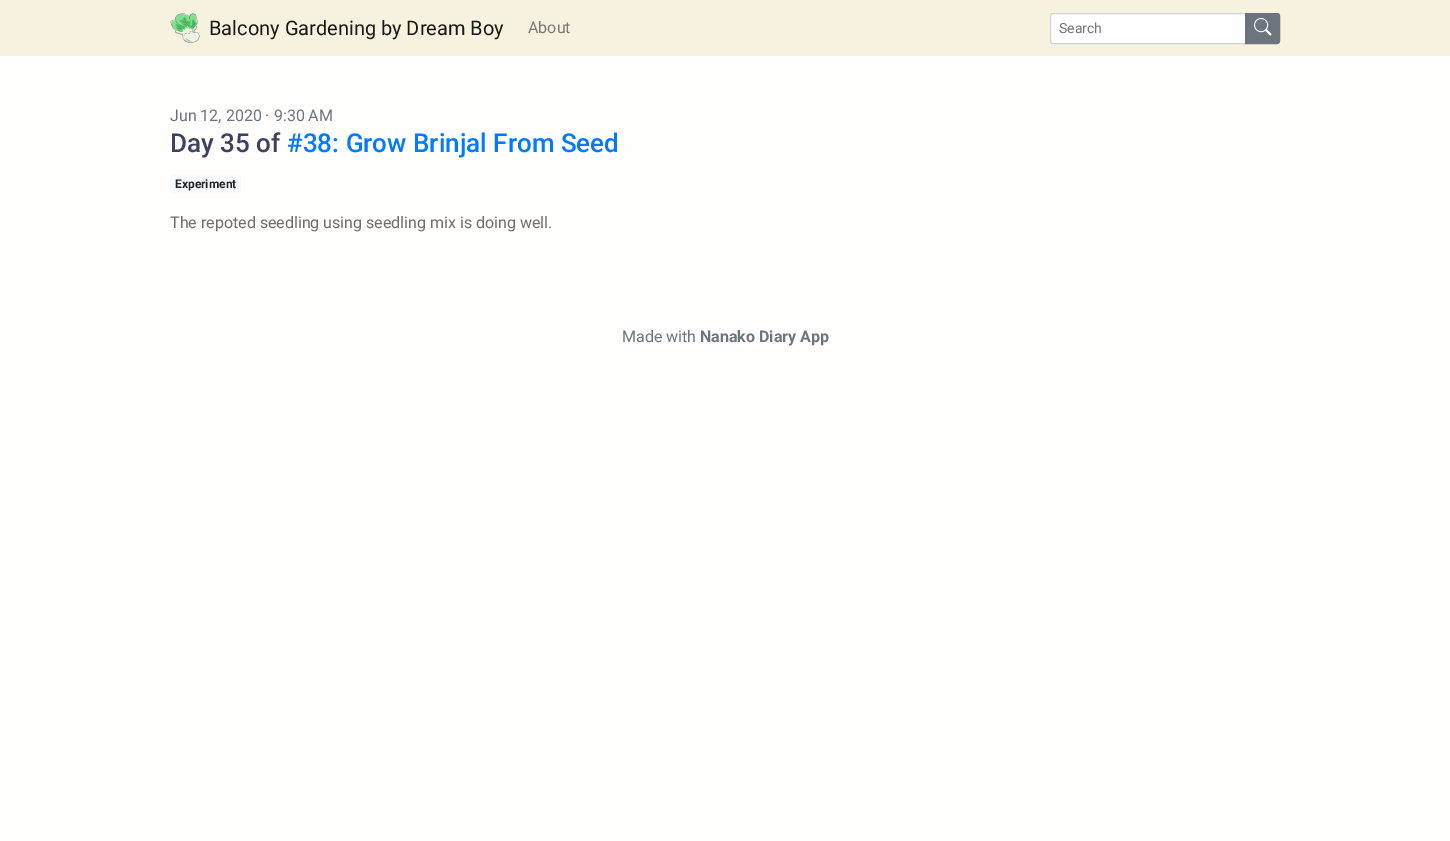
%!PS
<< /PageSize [1450 841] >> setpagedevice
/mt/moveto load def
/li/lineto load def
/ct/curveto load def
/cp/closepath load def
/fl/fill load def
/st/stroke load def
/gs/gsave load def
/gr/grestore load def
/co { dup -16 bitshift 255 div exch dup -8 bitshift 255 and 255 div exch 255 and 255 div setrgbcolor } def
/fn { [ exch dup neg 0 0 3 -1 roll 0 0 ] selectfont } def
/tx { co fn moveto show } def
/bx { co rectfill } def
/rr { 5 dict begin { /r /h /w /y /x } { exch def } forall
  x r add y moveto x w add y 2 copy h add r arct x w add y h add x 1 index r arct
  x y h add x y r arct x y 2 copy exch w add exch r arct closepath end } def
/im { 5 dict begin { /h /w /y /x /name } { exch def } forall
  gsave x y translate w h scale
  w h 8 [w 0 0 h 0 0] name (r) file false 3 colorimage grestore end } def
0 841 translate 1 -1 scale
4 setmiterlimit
0 0 1450 841 16#FFFEFC bx
0 0 1450 56 16#F7F2E0 bx
(media/1.raw) 170 13 30 30 im
16#FFFFFF co
1053 13.5 mt 1245.5 13.5 li 1245.5 43.5 li 1053 43.5 li 1051.5 43.5 1050.5 42.5 1050.5 41 ct 1050.5 16 li 1050.5 14.5 1051.5 13.5 1053 13.5 ct cp gs fl gr
16#CED4DA co
st
16#6C757D co
1245.5 13.5 mt 1277 13.5 li 1278.5 13.5 1279.5 14.5 1279.5 16 ct 1279.5 41 li 1279.5 42.5 1278.5 43.5 1277 43.5 ct 1245.5 43.5 li cp gs fl gr
st
(media/2.raw) 1254 18 18 18 im
16#F8F9FA co
170 175 71 18 4 rr fl
(Balcony Gardening by Dream Boy) 209 35 /Roboto-Regular 20 16#191816 tx
(About) 528 33 /Roboto-Regular 16 16#7C7970 tx
(Search) 1059 33 /Roboto-Regular 14 16#6C757D tx
(Jun 12, 2020 · 9:30 AM) 170 121 /Roboto-Regular 16 16#6C757D tx
(Day 35 of) 170 152 /Roboto-Medium 26 16#3B415E tx
(#38: Grow Brinjal From Seed) 287 152 /Roboto-Medium 26 16#007BFF tx
(Experiment) 175 188 /Roboto-Bold 12 16#212529 tx
(The repoted seedling using seedling mix is doing well.) 170 228 /Roboto-Regular 16 16#6E6E6E tx
(Made with) 622 342 /Roboto-Regular 16 16#6C757D tx
(Nanako Diary App) 700 342 /Roboto-Bold 16 16#6C757D tx
showpage
